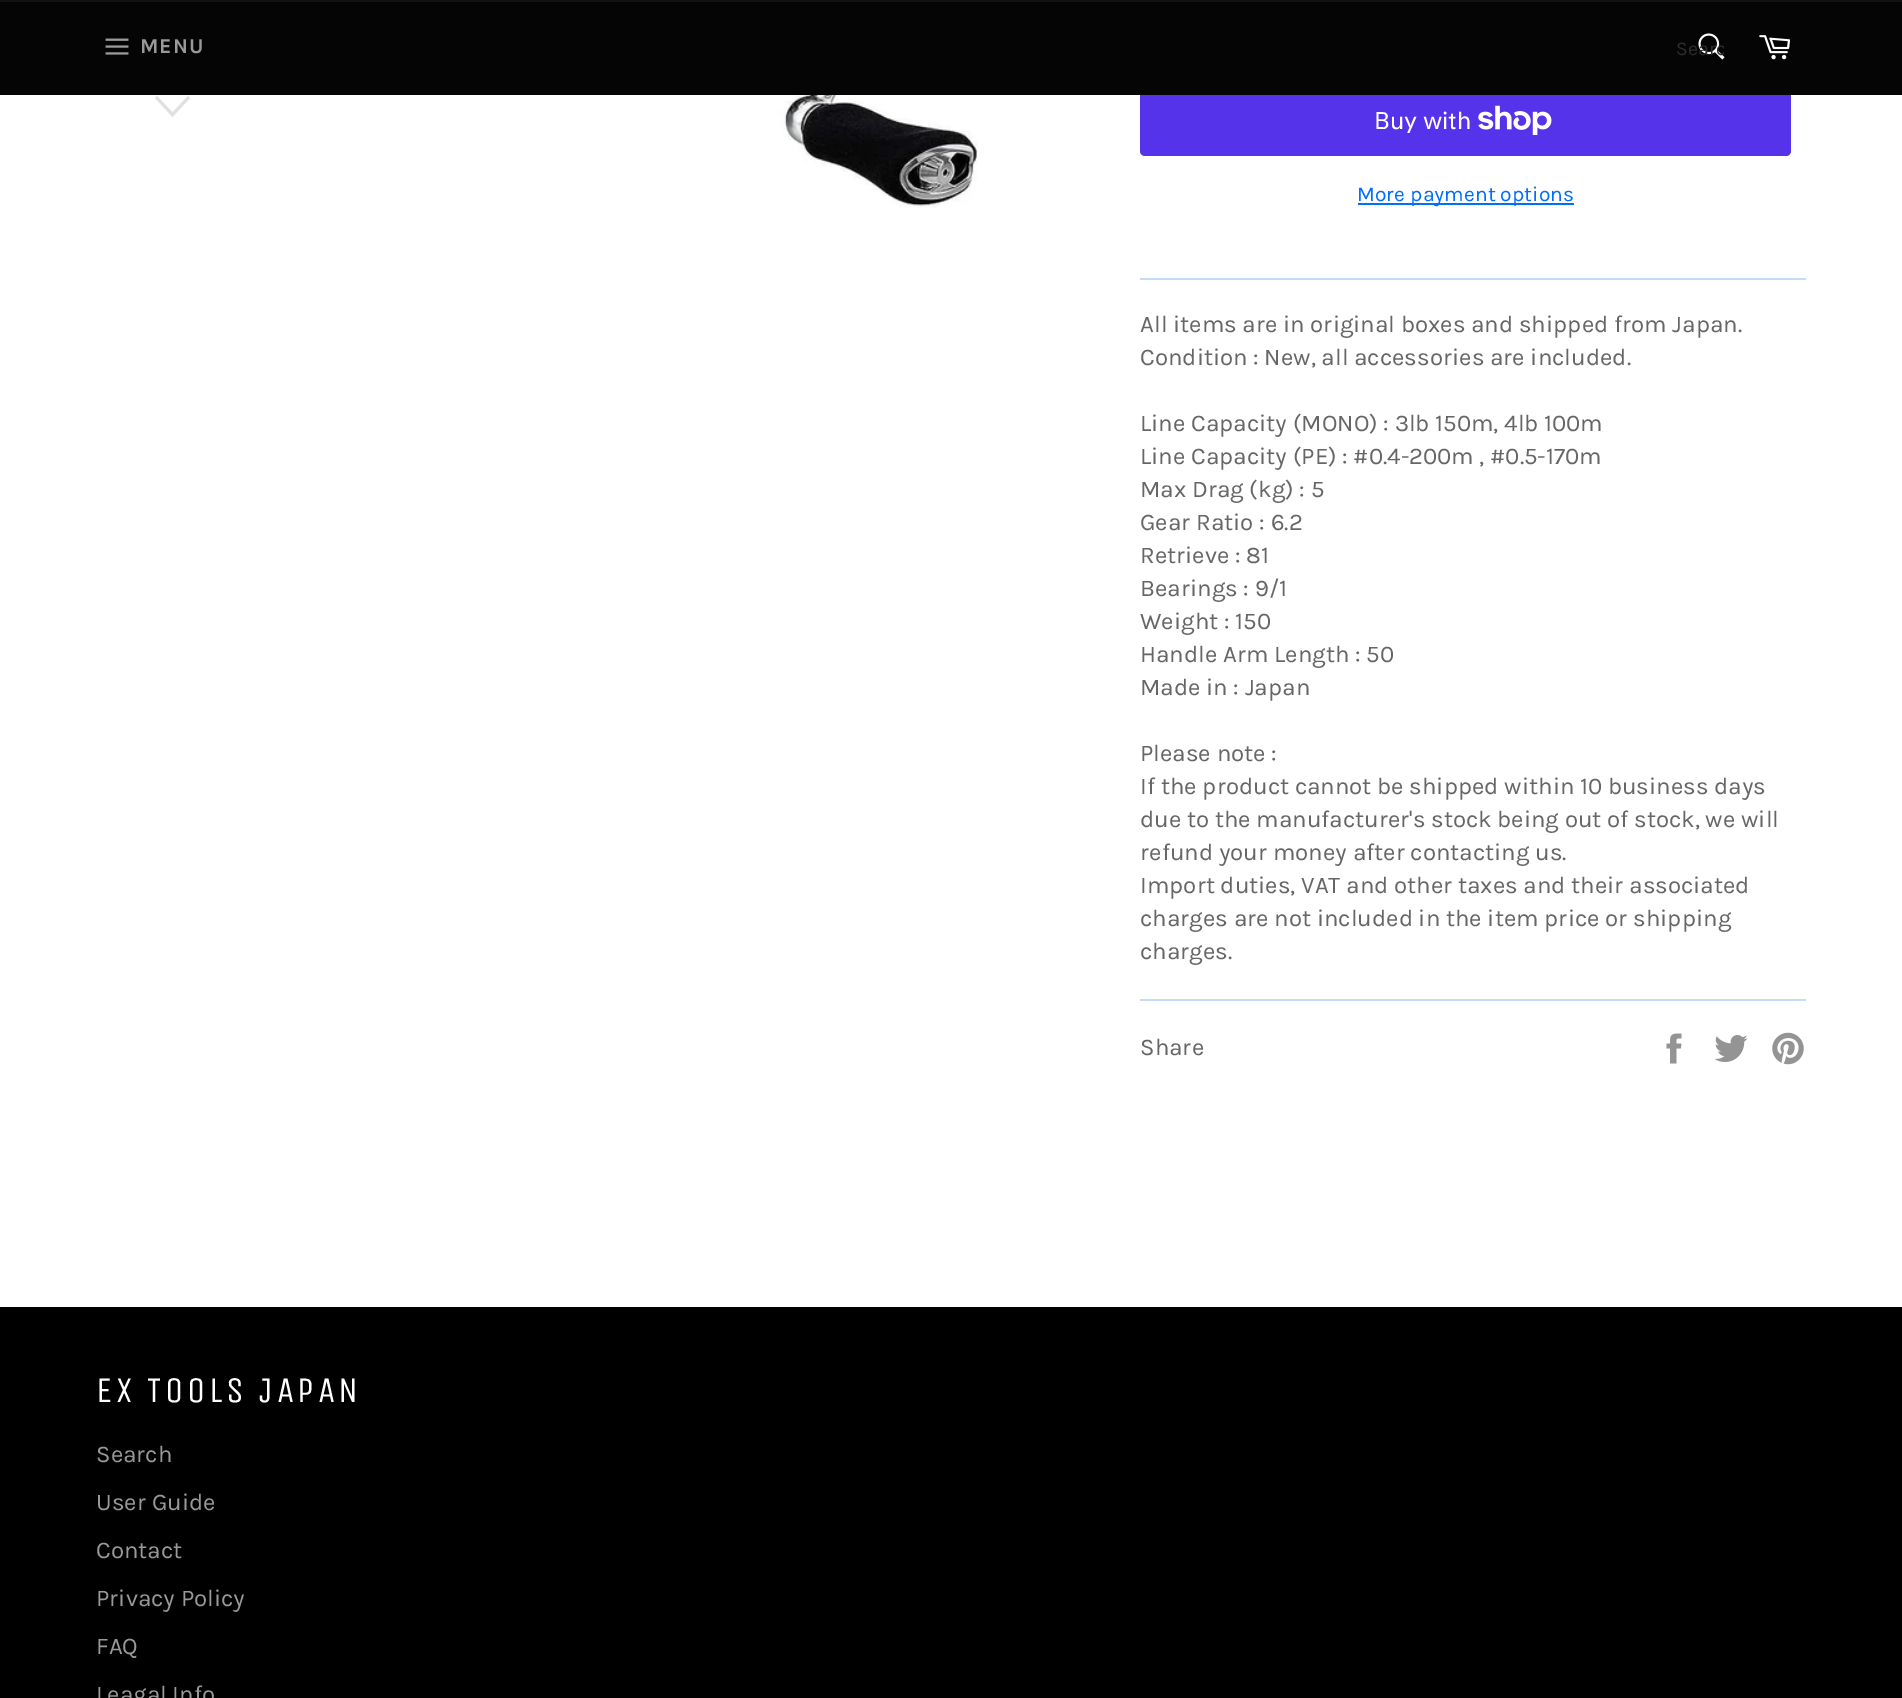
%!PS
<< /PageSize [1902 1698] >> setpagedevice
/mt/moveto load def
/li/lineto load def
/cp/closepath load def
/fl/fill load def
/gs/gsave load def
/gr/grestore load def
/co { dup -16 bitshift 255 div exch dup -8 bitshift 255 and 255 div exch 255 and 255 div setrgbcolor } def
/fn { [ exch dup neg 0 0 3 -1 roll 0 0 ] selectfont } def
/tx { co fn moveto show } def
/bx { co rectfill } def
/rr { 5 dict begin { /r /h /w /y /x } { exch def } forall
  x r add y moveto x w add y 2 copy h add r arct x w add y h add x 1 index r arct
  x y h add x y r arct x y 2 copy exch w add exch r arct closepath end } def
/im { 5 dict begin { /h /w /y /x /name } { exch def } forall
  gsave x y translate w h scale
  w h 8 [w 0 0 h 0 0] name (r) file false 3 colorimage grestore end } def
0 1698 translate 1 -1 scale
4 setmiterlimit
0 0 1902 1698 16#FFFFFF bx
16#5433EB co
1140 84 651 72 5 rr fl
0 2 1902 93 16#050505 bx
0 0 1902 2 16#121212 bx
(media/1.raw) 105 38 24 17 im
(media/2.raw) 1698 33 27 27 im
(media/3.raw) 1759 35 31 25 im
16#E0E0E0 co
188 96 mt 190 98 li 172.5 117 li 155 98 li 157 96 li 172.5 112.5 li cp fl
(media/4.raw) 459 95 519 113 im
(media/5.raw) 1478 105 74 30 im
1358 203 216 2 16#006EFF bx
1140 278 666 2 16#C4DCF7 bx
1140 999 666 2 16#C4DCF7 bx
(media/6.raw) 1666 1033 16 31 im
(media/7.raw) 1714 1035 34 27 im
(media/8.raw) 1772 1032 32 33 im
0 1307 1902 391 16#000000 bx
/Karla-Bold 21 fn
16#999999 co
140 53 mt 1 0 (MENU) ashow
gs
1676 38 48 22 rectclip
(Searc) 1676 55 /Karla-Regular 19.5 16#2C2C2C tx
gr
(Buy with) 1374 129 /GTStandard-Regular 24 16#FFFFFF tx
(More payment options) 1357 201 /Karla-Regular 21 16#006EFF tx
(All items are in original boxes and shipped from Japan.) 1140 332 /Karla-Regular 24 16#666666 tx
(Condition : New, all accessories are included.) 1140 365 /Karla-Regular 24 16#666666 tx
(Line Capacity \(MONO\) : 3lb 150m, 4lb 100m) 1140 431 /Karla-Regular 24 16#666666 tx
(Line Capacity \(PE\) : #0.4-200m , #0.5-170m) 1140 464 /Karla-Regular 24 16#666666 tx
(Max Drag \(kg\) : 5) 1140 497 /Karla-Regular 24 16#666666 tx
(Gear Ratio : 6.2) 1140 530 /Karla-Regular 24 16#666666 tx
(Retrieve : 81) 1140 563 /Karla-Regular 24 16#666666 tx
(Bearings : 9/1) 1140 596 /Karla-Regular 24 16#666666 tx
(Weight : 150) 1140 629 /Karla-Regular 24 16#666666 tx
(Handle Arm Length : 50) 1140 662 /Karla-Regular 24 16#666666 tx
(Made in : Japan) 1140 695 /Karla-Regular 24 16#666666 tx
(Please note :) 1140 761 /Karla-Regular 24 16#666666 tx
(If the product cannot be shipped within 10 business days) 1140 794 /Karla-Regular 24 16#666666 tx
(due to the manufacturer's stock being out of stock, we will) 1140 827 /Karla-Regular 24 16#666666 tx
(refund your money after contacting us.) 1140 860 /Karla-Regular 24 16#666666 tx
(Import duties, VAT and other taxes and their associated) 1140 893 /Karla-Regular 24 16#666666 tx
(charges are not included in the item price or shipping) 1140 926 /Karla-Regular 24 16#666666 tx
(charges.) 1140 959 /Karla-Regular 24 16#666666 tx
(Share) 1140 1055 /Karla-Regular 24 16#666666 tx
/UnicaOne-Regular 36 fn
16#FFFFFF co
96 1402 mt 3.6 0 (EX TOOLS JAPAN) ashow
(Search) 96 1462 /Karla-Regular 24 16#999999 tx
(User Guide) 96 1510 /Karla-Regular 24 16#999999 tx
(Contact) 96 1558 /Karla-Regular 24 16#999999 tx
(Privacy Policy) 96 1606 /Karla-Regular 24 16#999999 tx
(FAQ) 96 1654 /Karla-Regular 24 16#999999 tx
(Leagal Info) 96 1702 /Karla-Regular 24 16#999999 tx
showpage
